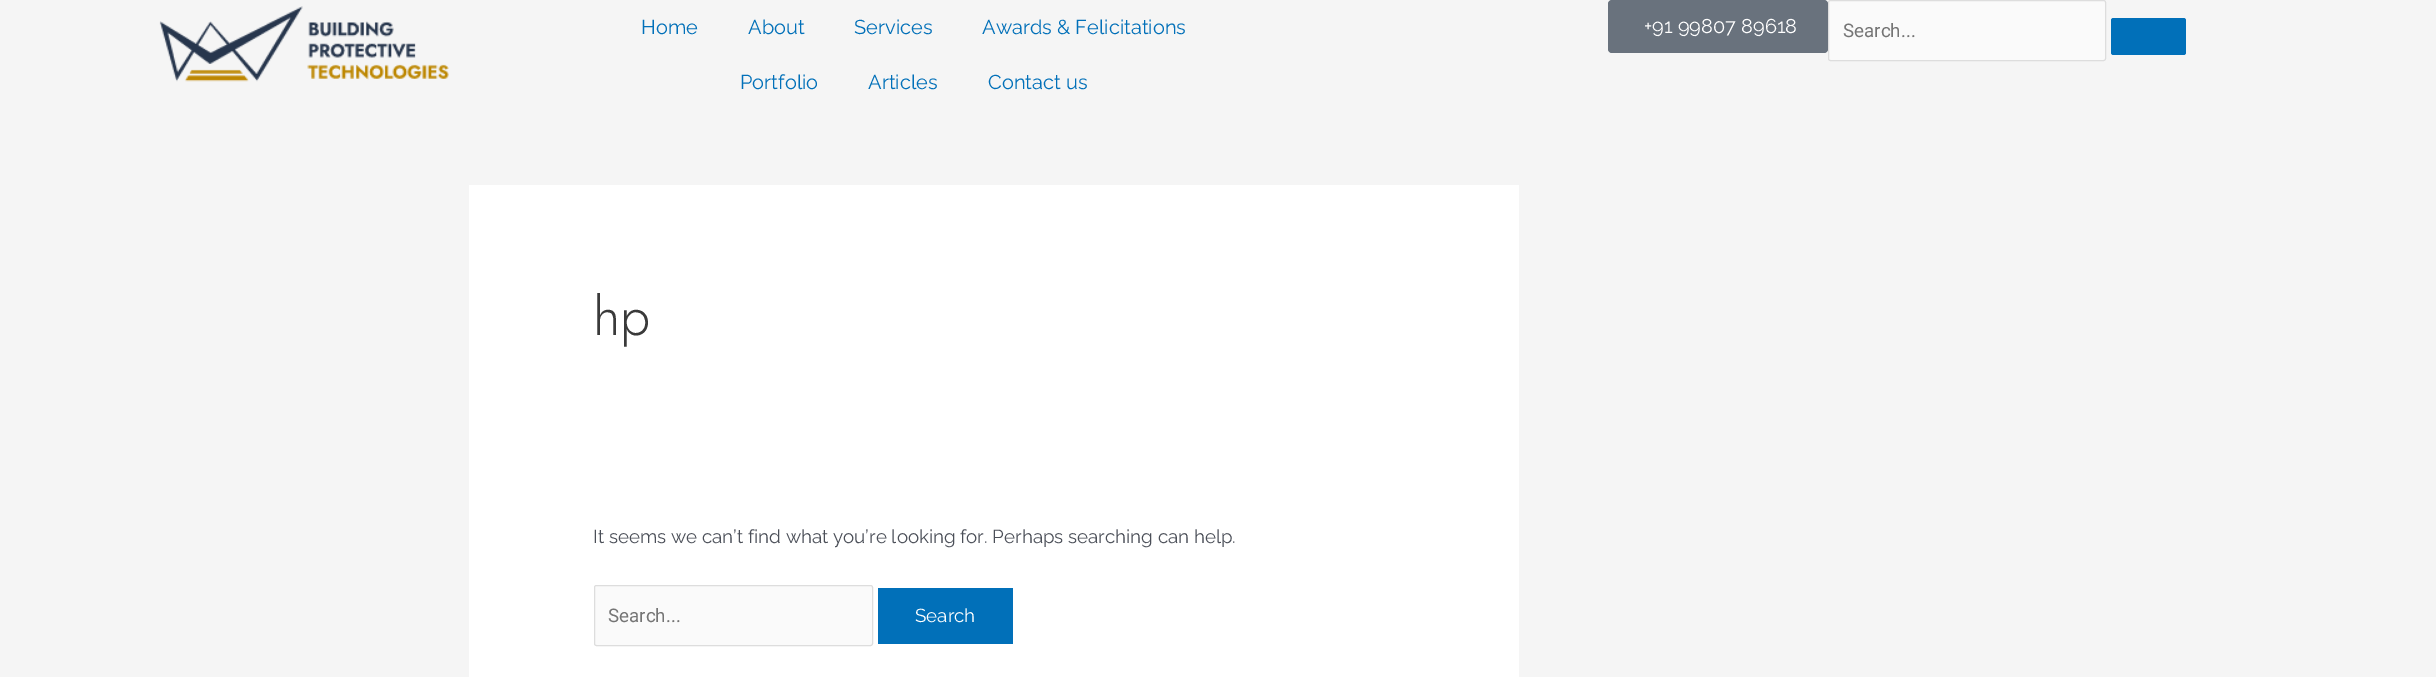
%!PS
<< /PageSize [2436 677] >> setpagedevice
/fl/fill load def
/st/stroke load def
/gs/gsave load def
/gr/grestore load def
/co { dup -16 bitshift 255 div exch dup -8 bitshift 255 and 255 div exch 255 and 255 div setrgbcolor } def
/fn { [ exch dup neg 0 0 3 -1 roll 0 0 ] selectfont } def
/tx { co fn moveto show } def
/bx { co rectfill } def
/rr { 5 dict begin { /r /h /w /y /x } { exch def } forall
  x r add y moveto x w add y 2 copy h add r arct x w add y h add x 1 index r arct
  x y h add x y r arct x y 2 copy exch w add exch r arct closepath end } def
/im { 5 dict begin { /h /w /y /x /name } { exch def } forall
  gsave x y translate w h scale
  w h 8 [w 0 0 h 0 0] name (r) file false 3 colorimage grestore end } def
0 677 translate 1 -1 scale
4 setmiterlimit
0 0 2436 677 16#F5F5F5 bx
(media/1.raw) 159 6 290 76 im
16#69727D co
1608 0 220 53 4 rr fl
16#FAFAFA co
1828.5 .5 277 60 2 rr gs fl gr
16#DDDDDD co
st
16#0170B9 co
2111 18 75 37 2.5 rr fl
469 185 1050 492 16#FFFFFF bx
16#FAFAFA co
594.5 585.5 278 60 2 rr gs fl gr
16#DDDDDD co
st
878 588 135 56 16#0170B9 bx
(Home) 641 34 /Raleway-Regular 20 16#0170B9 tx
(About) 748 34 /Raleway-Regular 20 16#0170B9 tx
(Services) 854 34 /Raleway-Regular 20 16#0170B9 tx
(Awards & Felicitations) 982 34 /Raleway-Regular 20 16#0170B9 tx
(Portfolio) 740 89 /Raleway-Regular 20 16#0170B9 tx
(Articles) 868 89 /Raleway-Regular 20 16#0170B9 tx
(Contact us) 988 89 /Raleway-Regular 20 16#0170B9 tx
(+91 99807 89618) 1644 33 /Raleway-Regular 20 16#FFFFFF tx
(Search...) 1843 37 /Roboto-Regular 18.75 16#757575 tx
(hp) 593 335 /Jost-Light 54 16#3A3A3A tx
(It seems we can’t find what you’re looking for. Perhaps searching can help.) 593 543 /Raleway-Regular 18.75 16#4B4F58 tx
(Search...) 608 622 /Roboto-Regular 18.75 16#757575 tx
(Search) 915 622 /Raleway-Regular 18.75 16#FFFFFF tx
showpage
